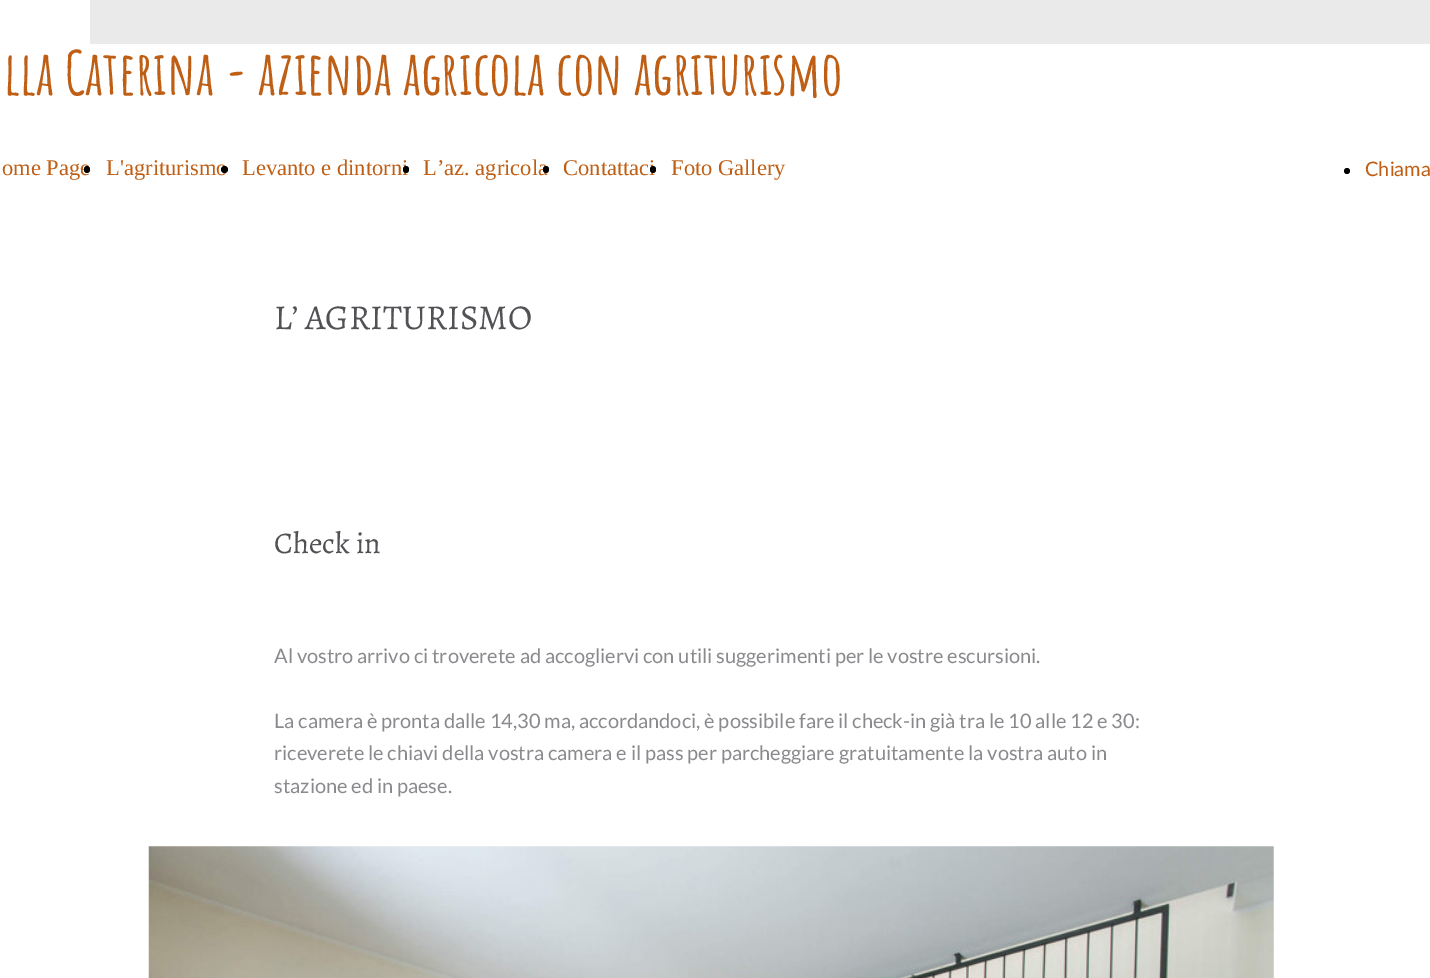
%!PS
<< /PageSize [1430 978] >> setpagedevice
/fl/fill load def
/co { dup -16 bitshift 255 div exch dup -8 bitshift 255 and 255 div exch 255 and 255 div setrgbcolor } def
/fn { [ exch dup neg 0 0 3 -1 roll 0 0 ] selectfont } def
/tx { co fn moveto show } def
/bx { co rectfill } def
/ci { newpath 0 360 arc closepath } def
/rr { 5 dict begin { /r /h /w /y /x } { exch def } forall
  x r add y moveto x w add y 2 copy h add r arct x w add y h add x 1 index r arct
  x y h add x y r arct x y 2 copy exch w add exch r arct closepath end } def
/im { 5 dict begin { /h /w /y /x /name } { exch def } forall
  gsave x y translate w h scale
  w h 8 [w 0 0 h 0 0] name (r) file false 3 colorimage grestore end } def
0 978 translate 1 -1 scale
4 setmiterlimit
0 0 1430 978 16#FFFFFF bx
90 0 1340 44 16#EAEAEA bx
16#000000 co
1347 171 3 ci fl
(media/1.raw) 148 846 1126 132 im
(lla Caterina - azienda agricola con agriturismo) 4 95 /AmaticSC-Bold 60 16#BF5F15 tx
(ome Page) 2 175 /LiberationSerif-Regular 22.5 16#BF5F15 tx
16#000000 co
84 166 6 7 3 rr fl
(L'agriturismo) 106 175 /LiberationSerif-Regular 22.5 16#BF5F15 tx
16#000000 co
224.5 169.5 3.5 ci fl
(Levanto e dintorni) 242 175 /LiberationSerif-Regular 22.5 16#BF5F15 tx
16#000000 co
403 166 6 7 3 rr fl
(L’az. agricola) 423 175 /LiberationSerif-Regular 22.5 16#BF5F15 tx
16#000000 co
543 166 6 7 3 rr fl
(Contattaci) 563 175 /LiberationSerif-Regular 22.5 16#BF5F15 tx
16#000000 co
650 166 6 7 3 rr fl
(Foto Gallery) 671 175 /LiberationSerif-Regular 22.5 16#BF5F15 tx
(Chiama) 1365 176 /Lato-Regular 20 16#BF5F15 tx
(L’ AGRITURISMO) 274 329 /Alegreya-Regular 35 16#525256 tx
(Check in) 274 553 /Alegreya-Regular 30 16#525256 tx
(Al vostro arrivo ci troverete ad accogliervi con utili suggerimenti per le vostre escursioni.) 274 663 /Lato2-Regular 20 16#8A8A8E tx
(La camera è pronta dalle 14,30 ma, accordandoci, è possibile fare il check-in già tra le 10 alle 12 e 30:) 274 728 /Lato2-Regular 20 16#8A8A8E tx
(riceverete le chiavi della vostra camera e il pass per parcheggiare gratuitamente la vostra auto in) 274 760 /Lato2-Regular 20 16#8A8A8E tx
(stazione ed in paese.) 274 793 /Lato2-Regular 20 16#8A8A8E tx
showpage
